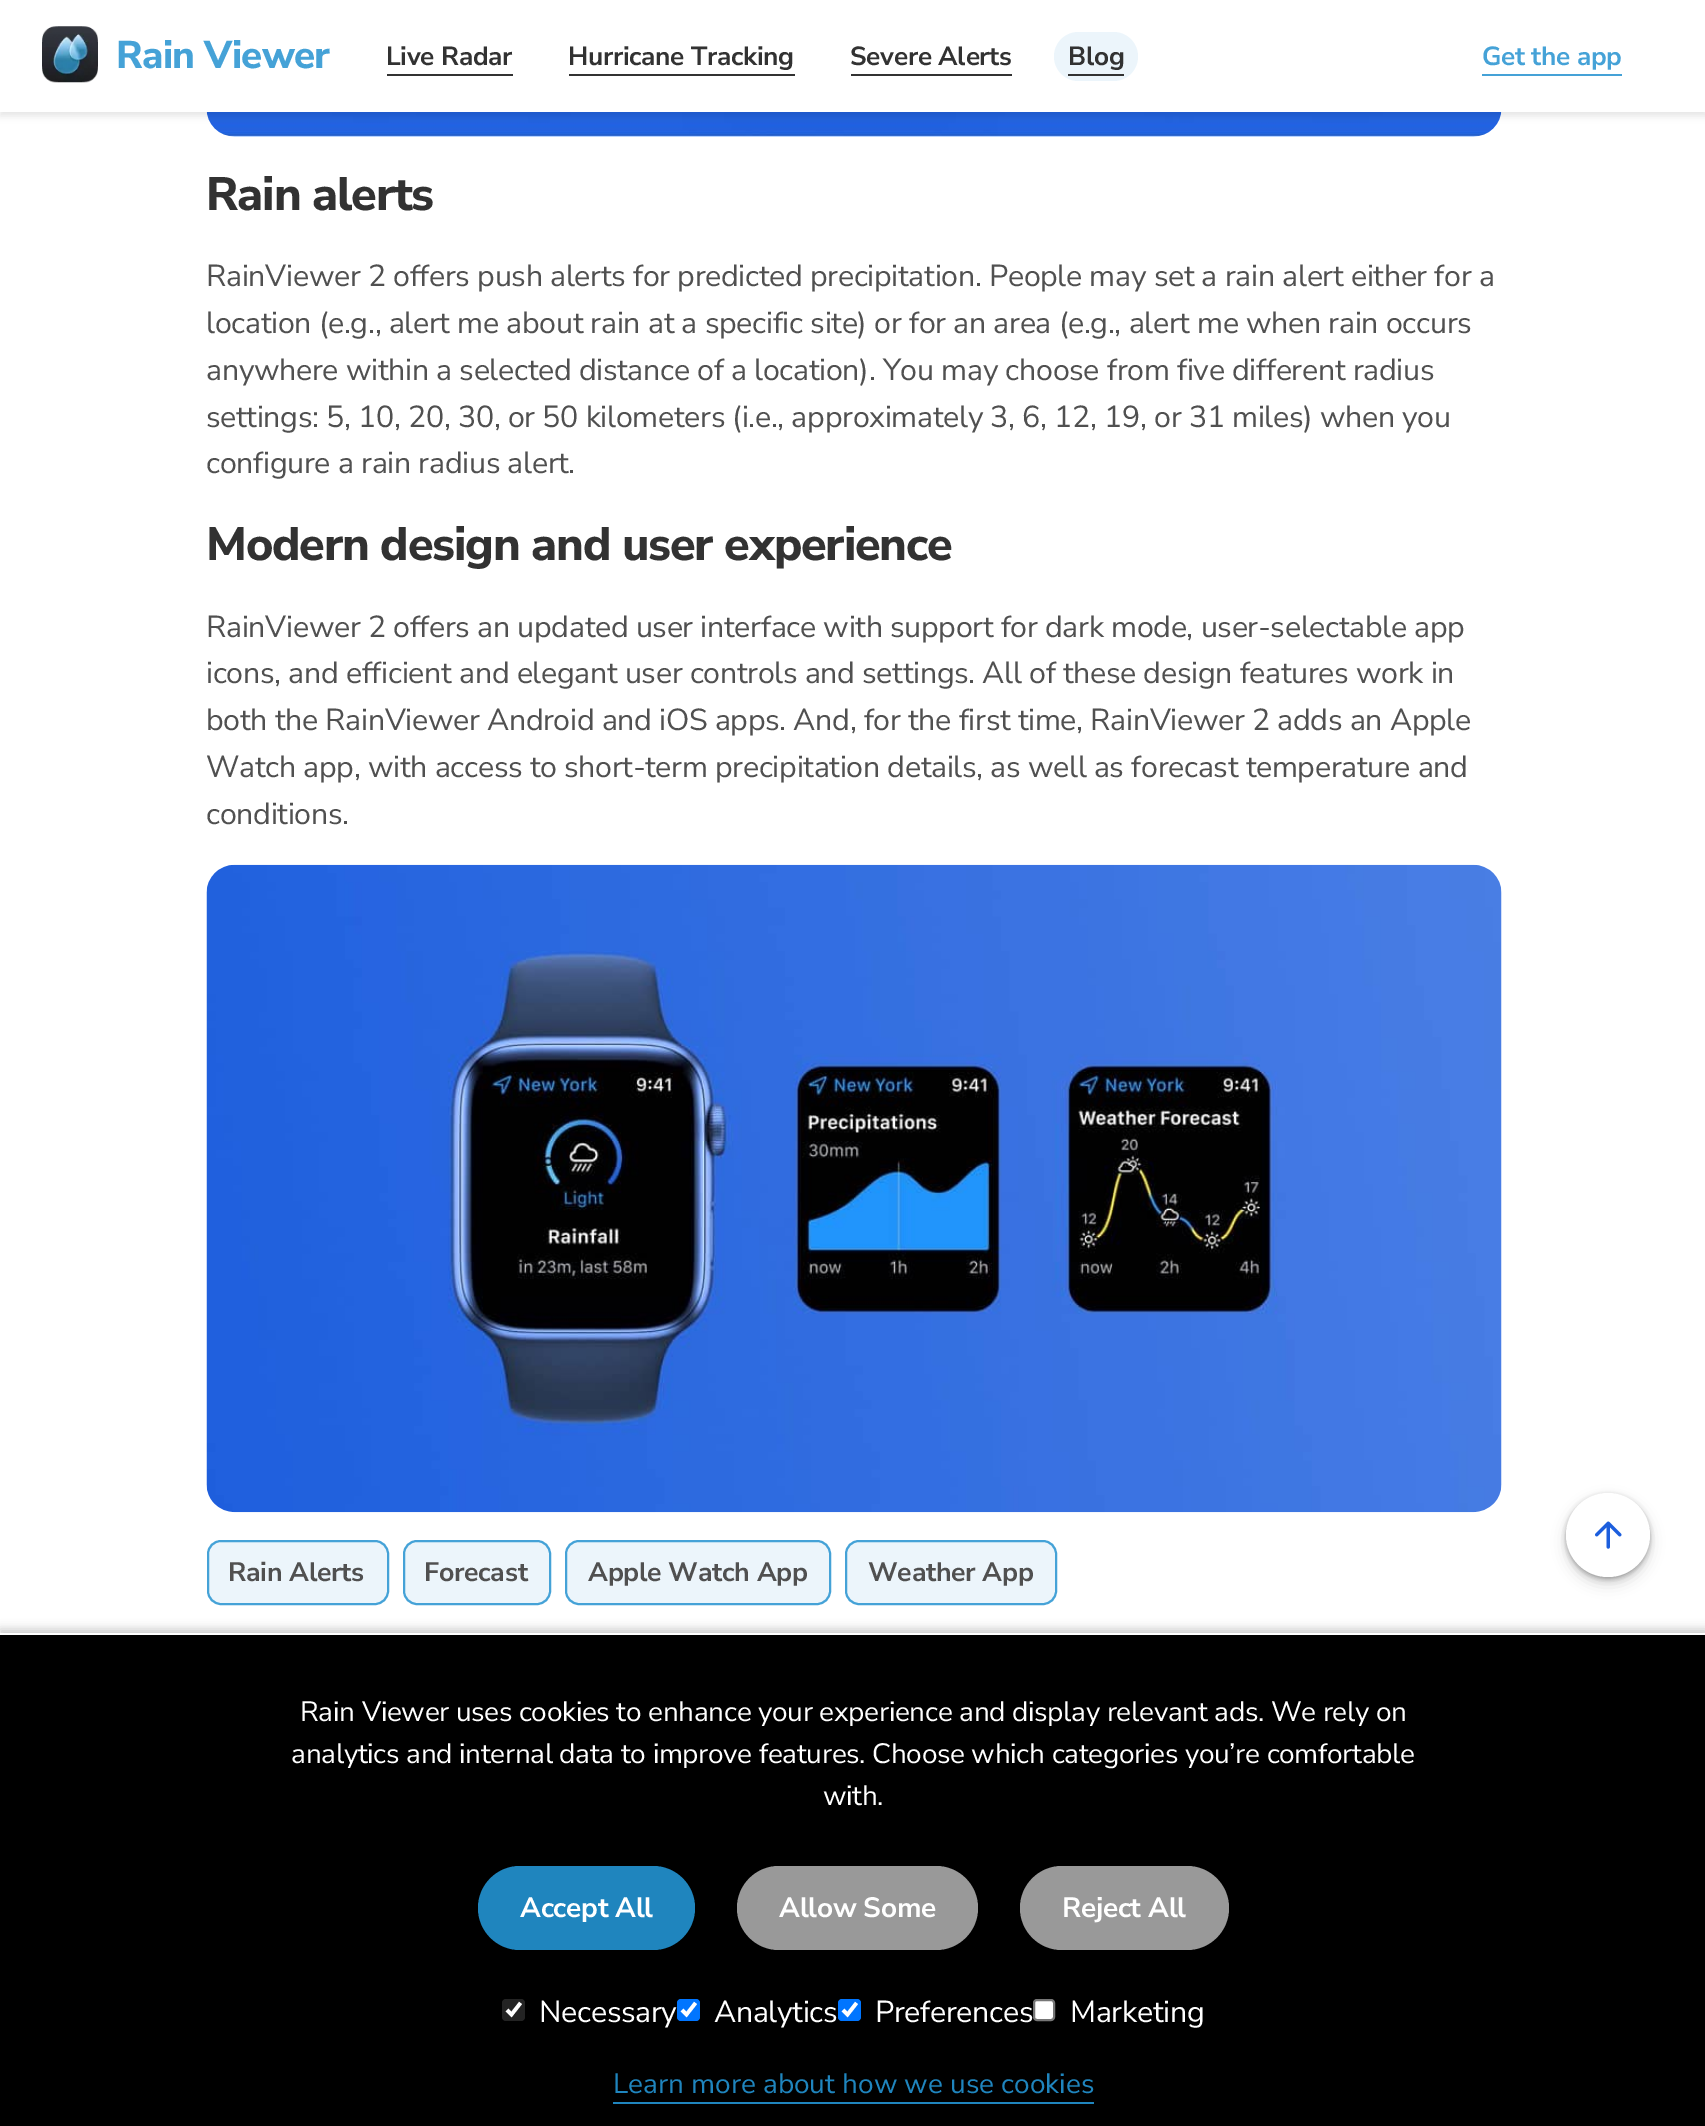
%!PS
<< /PageSize [1705 2126] /PageUsesTransparency true >> setpagedevice
/mt/moveto load def
/li/lineto load def
/fl/fill load def
/st/stroke load def
/gs/gsave load def
/gr/grestore load def
/lw/setlinewidth load def
/co { dup -16 bitshift 255 div exch dup -8 bitshift 255 and 255 div exch 255 and 255 div setrgbcolor } def
/fn { [ exch dup neg 0 0 3 -1 roll 0 0 ] selectfont } def
/tx { co fn moveto show } def
/bx { co rectfill } def
/al { dup .setfillconstantalpha .setstrokeconstantalpha } def
/ci { newpath 0 360 arc closepath } def
/rr { 5 dict begin { /r /h /w /y /x } { exch def } forall
  x r add y moveto x w add y 2 copy h add r arct x w add y h add x 1 index r arct
  x y h add x y r arct x y 2 copy exch w add exch r arct closepath end } def
/sh { 12 dict begin { /a /b /q /h /w /y /x } { exch def } forall gsave /was 0 def
  9 -2 -9 { dup b mul 4 div /e exch def 1 sub .425 mul 2.718 exch exp 1 add a .99 .min exch div /now exch def
    1 1 now sub 1 was sub div sub al /was now def
    w h .min e 2 mul add 0 gt { x e sub y e sub w e 2 mul add h e 2 mul add
      q e add b .6 mul add w h .min 2 div e add .min 0 .max rr fill } if } for grestore end } def
/im { 5 dict begin { /h /w /y /x /name } { exch def } forall
  gsave x y translate w h scale
  w h 8 [w 0 0 h 0 0] name (r) file false 3 colorimage grestore end } def
0 .pushpdf14devicefilter
0 2126 translate 1 -1 scale
4 setmiterlimit
0 0 1705 2126 16#FFFFFF bx
(media/2.raw) 206 112 1296 25 im
16#000000 co
0 4 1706 112 0 3.5 .1 sh
0 0 1705 112 16#FFFFFF bx
(media/1.raw) 42 26 56 57 im
387 74 126 2 16#323232 bx
569 74 226 2 16#323232 bx
851 74 161 2 16#323232 bx
16#ECF5FB co
1054 32 84 49 24.5 rr fl
1068 74 56 2 16#323232 bx
1482 74 140 2 16#45A2D7 bx
(media/3.raw) 206 864 1296 649 im
16#ECF5FB co
208 1541 180 63 13 rr gs fl gr
16#45A2D7 co
2 lw
st
16#ECF5FB co
404 1541 146 63 13 rr gs fl gr
16#45A2D7 co
st
16#ECF5FB co
566 1541 264 63 13 rr gs fl gr
16#45A2D7 co
st
16#ECF5FB co
846 1541 210 63 13 rr gs fl gr
16#45A2D7 co
st
16#000000 co
1566 1500 84 84 42 7 .15 sh
1566 1495 84 84 42 2.5 .3 sh
16#FFFFFF co
1608 1535 42 ci fl
(media/4.raw) 1595 1521 27 28 im
16#000000 co
0 1629 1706 494 0 4.5 .2 sh
0 1635 1705 491 16#000000 bx
0 1633 1705 2 16#FFFFFF bx
16#1F85BE co
478 1866 217 84 42 rr fl
16#999999 co
737 1866 241 84 42 rr fl
1020 1866 209 84 42 rr fl
16#232323 co
502 1999 23 22 4 rr fl
16#FFFFFF co
3.6 lw
507 2010 mt 511.5 2014.5 li 520.5 2003 li st
16#0075FF co
838 1999 23 22 4 rr fl
16#FFFFFF co
843 2010 mt 847.5 2014.5 li 856.5 2003 li st
1034 2000 20 20 3 rr gs fl gr
16#767676 co
2 lw
st
613 2102 481 2 16#1F85BE bx
/NunitoSans-ExtraBold 38.5 fn
16#45A2D7 co
116 68 mt -.75 0 (Rain Viewer) ashow
/NunitoSans-Bold 26.25 fn
16#323232 co
386 65 mt -.32 0 (Live Radar) ashow
568 65 mt -.32 0 (Hurricane Tracking) ashow
850 65 mt -.32 0 (Severe Alerts) ashow
1068 65 mt -.32 0 (Blog) ashow
16#45A2D7 co
1482 65 mt -.32 0 (Get the app) ashow
/NunitoSans-ExtraBold 46.75 fn
16#323232 co
206 210 mt -1.2 0 (Rain alerts) ashow
/NunitoSans-Regular 30.35 fn
16#505050 co
206 286 mt -.32 0 (RainViewer 2 offers push alerts for predicted precipitation. People may set a rain alert either for a) ashow
206 333 mt -.32 0 (location \(e.g., alert me about rain at a specific site\) or for an area \(e.g., alert me when rain occurs) ashow
206 380 mt -.32 0 (anywhere within a selected distance of a location\). You may choose from five different radius) ashow
206 427 mt -.32 0 (settings: 5, 10, 20, 30, or 50 kilometers \(i.e., approximately 3, 6, 12, 19, or 31 miles\) when you) ashow
206 473 mt -.32 0 (configure a rain radius alert.) ashow
/NunitoSans-ExtraBold 46.75 fn
16#323232 co
206 560 mt -1.2 0 (Modern design and user experience) ashow
/NunitoSans-Regular 30.35 fn
16#505050 co
206 637 mt -.32 0 (RainViewer 2 offers an updated user interface with support for dark mode, user-selectable app) ashow
206 683 mt -.32 0 (icons, and efficient and elegant user controls and settings. All of these design features work in) ashow
206 730 mt -.32 0 (both the RainViewer Android and iOS apps. And, for the first time, RainViewer 2 adds an Apple) ashow
206 777 mt -.32 0 (Watch app, with access to short-term precipitation details, as well as forecast temperature and) ashow
206 824 mt -.32 0 (conditions.) ashow
/NunitoSans-Bold 26.75 fn
228 1581 mt -.32 0 (Rain Alerts) ashow
424 1581 mt -.32 0 (Forecast) ashow
588 1581 mt -.32 0 (Apple Watch App) ashow
868 1581 mt -.32 0 (Weather App) ashow
/NunitoSans-Regular 28 fn
16#FFFFFF co
300 1721 mt -.32 0 (Rain Viewer uses cookies to enhance your experience and display relevant ads. We rely on) ashow
291 1763 mt -.32 0 (analytics and internal data to improve features. Choose which categories you’re comfortable) ashow
823 1805 mt -.32 0 (with.) ashow
/NunitoSans-Bold 28 fn
520 1917 mt -.32 0 (Accept All) ashow
779 1917 mt -.32 0 (Allow Some) ashow
1062 1917 mt -.32 0 (Reject All) ashow
/NunitoSans-Regular 30.35 fn
539 2022 mt -.32 0 (Necessary) ashow
16#0075FF co
677 1999 23 22 4 rr fl
16#FFFFFF co
3.6 lw
682 2010 mt 686.5 2014.5 li 695.5 2003 li st
714 2022 mt -.32 0 (Analytics) ashow
875 2022 mt -.32 0 (Preferences) ashow
1070 2022 mt -.32 0 (Marketing) ashow
(Learn more about how we use cookies) 613 2093 /NunitoSans-Regular 28 16#1F85BE tx
.poppdf14devicefilter showpage
